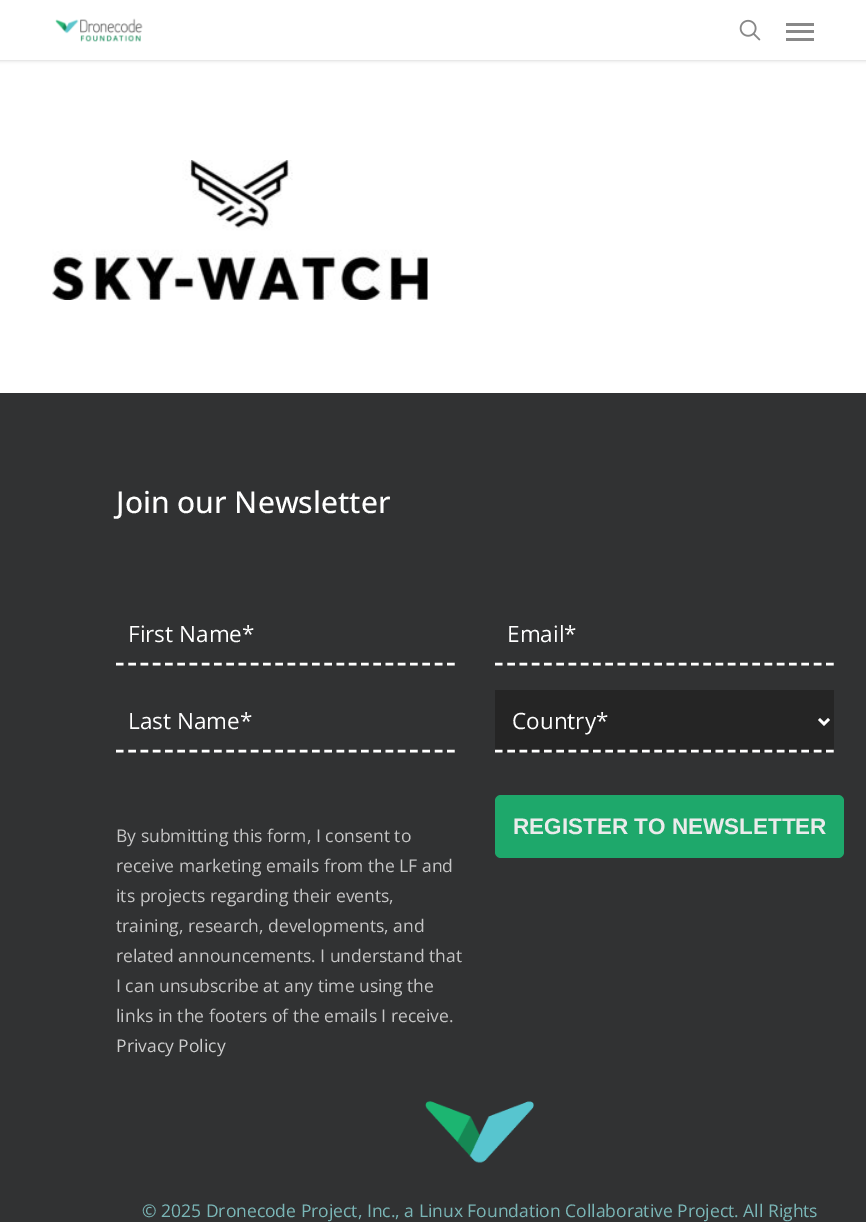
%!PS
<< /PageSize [866 1222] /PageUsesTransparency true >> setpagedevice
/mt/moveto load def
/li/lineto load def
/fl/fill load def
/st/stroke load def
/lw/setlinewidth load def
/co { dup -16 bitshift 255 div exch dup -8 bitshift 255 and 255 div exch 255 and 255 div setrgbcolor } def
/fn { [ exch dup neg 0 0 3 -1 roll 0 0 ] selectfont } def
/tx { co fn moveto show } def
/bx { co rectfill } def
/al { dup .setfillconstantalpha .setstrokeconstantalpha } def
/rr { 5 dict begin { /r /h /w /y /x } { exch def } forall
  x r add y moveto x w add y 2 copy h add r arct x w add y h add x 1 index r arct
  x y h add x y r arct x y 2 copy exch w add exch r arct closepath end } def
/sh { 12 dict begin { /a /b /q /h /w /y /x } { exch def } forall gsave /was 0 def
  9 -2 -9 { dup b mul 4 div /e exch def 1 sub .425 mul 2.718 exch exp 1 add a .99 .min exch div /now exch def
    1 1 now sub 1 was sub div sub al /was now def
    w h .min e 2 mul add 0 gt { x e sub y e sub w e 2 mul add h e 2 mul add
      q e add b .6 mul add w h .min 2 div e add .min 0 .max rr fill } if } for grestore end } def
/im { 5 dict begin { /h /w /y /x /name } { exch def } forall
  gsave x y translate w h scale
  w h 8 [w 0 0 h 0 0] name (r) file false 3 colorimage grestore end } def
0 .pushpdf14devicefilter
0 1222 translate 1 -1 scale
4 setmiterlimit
0 0 866 1222 16#FFFFFF bx
16#000000 co
0 0 866 60 0 2 .22 sh
0 0 866 60 16#FFFFFF bx
(media/1.raw) 55 18 88 24 im
(media/2.raw) 739 19 22 22 im
786 23 28 3 16#888888 bx
786 38 28 3 16#888888 bx
786 30 28 3 16#888888 bx
(media/3.raw) 52 160 376 140 im
0 393 866 829 16#313233 bx
16#FFFFFF co
2.5 lw
[7.5 4.76] 0 setdash
116 664 mt 455 664 li st
116 751 mt 455 751 li st
495 664 mt 834 664 li st
495 690 339 63 16#252525 bx
16#FFFFFF co
495 751 mt 834 751 li st
[] 0 setdash
819 719 mt 824 724 li 829 719 li st
16#1EA86B co
495 795 349 63 6 rr fl
(media/4.raw) 425 1101 109 62 im
(Join our Newsletter) 116 513 /OpenSans-Medium 30 16#FFFFFF tx
(First Name*) 128 642 /OpenSans-Regular 22.5 16#FFFFFF tx
(Last Name*) 128 729 /OpenSans-Regular 22.5 16#FFFFFF tx
(Email*) 507 642 /OpenSans-Regular 22.5 16#FFFFFF tx
(Country*) 512 729 /OpenSans-Regular 22.5 16#FFFFFF tx
(By submitting this form, I consent to) 116 842 /OpenSans-Regular 17.5 16#C5C5C5 tx
(receive marketing emails from the LF and) 116 872 /OpenSans-Regular 17.5 16#C5C5C5 tx
(its projects regarding their events,) 116 902 /OpenSans-Regular 17.5 16#C5C5C5 tx
(training, research, developments, and) 116 932 /OpenSans-Regular 17.5 16#C5C5C5 tx
(related announcements. I understand that) 116 962 /OpenSans-Regular 17.5 16#C5C5C5 tx
(I can unsubscribe at any time using the) 116 992 /OpenSans-Regular 17.5 16#C5C5C5 tx
(links in the footers of the emails I receive.) 116 1022 /OpenSans-Regular 17.5 16#C5C5C5 tx
(Privacy Policy) 116 1052 /OpenSans-Regular 17.5 16#CCCCCC tx
(REGISTER TO NEWSLETTER) 513 834 /LiberationSans-Bold 22.5 16#EAEBEB tx
(© 2025 Dronecode Project, Inc., a Linux Foundation Collaborative Project. All Rights) 142 1217 /OpenSans-Regular 17.5 16#7AB6B7 tx
.poppdf14devicefilter showpage
